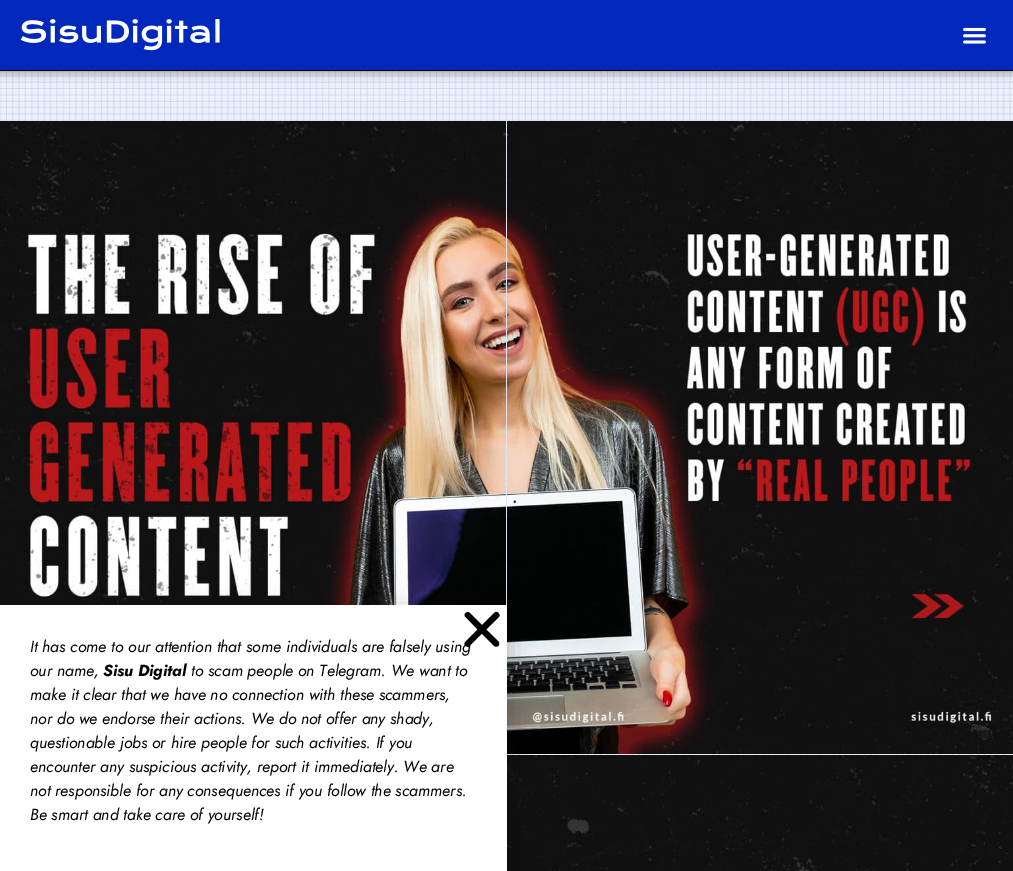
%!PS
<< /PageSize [1013 871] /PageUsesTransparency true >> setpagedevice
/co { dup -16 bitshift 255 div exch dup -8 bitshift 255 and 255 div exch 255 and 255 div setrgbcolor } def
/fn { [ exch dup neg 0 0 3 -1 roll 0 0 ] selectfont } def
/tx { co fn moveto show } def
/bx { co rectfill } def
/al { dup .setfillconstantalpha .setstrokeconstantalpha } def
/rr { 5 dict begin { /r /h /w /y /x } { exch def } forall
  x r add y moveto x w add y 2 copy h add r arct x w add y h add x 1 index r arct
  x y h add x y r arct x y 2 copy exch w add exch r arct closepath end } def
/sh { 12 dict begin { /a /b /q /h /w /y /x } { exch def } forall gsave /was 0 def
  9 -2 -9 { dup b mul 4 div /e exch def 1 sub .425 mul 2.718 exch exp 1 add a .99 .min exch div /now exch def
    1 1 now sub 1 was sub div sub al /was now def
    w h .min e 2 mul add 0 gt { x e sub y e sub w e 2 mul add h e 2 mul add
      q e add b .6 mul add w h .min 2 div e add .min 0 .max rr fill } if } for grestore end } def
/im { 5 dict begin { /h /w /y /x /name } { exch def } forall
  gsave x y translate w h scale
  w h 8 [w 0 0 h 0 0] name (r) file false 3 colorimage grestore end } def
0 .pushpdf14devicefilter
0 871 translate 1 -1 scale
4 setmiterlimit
0 0 1013 871 16#FFFFFF bx
(media/1.raw) 0 71 1013 684 im
16#000000 co
0 0 1013 71 0 5 .5 sh
0 0 1013 70 16#0029BC bx
0 70 1013 1 16#000000 bx
(media/2.raw) 20 19 200 32 im
(media/3.raw) 963 27 23 17 im
(media/4.raw) 0 121 506 484 im
(media/5.raw) 507 121 506 633 im
(media/6.raw) 507 755 506 116 im
-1 610 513 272 0 11.5 .2 sh
0 605 507 266 16#FFFFFF bx
(It has come to our attention that some individuals are falsely using) 30 652 /Jost-Italic 16 16#000000 tx
(media/7.raw) 464 611 36 36 im
(our name,) 30 676 /Jost-Italic 16 16#000000 tx
(Sisu Digital) 103 676 /Jost-BoldItalic 16 16#000000 tx
(to scam people on Telegram. We want to) 191 676 /Jost-Italic 16 16#000000 tx
(make it clear that we have no connection with these scammers,) 30 700 /Jost-Italic 16 16#000000 tx
(nor do we endorse their actions. We do not offer any shady,) 30 724 /Jost-Italic 16 16#000000 tx
(questionable jobs or hire people for such activities. If you) 30 748 /Jost-Italic 16 16#000000 tx
(encounter any suspicious activity, report it immediately. We are) 30 772 /Jost-Italic 16 16#000000 tx
(not responsible for any consequences if you follow the scammers.) 30 796 /Jost-Italic 16 16#000000 tx
(Be smart and take care of yourself!) 30 820 /Jost-Italic 16 16#000000 tx
.poppdf14devicefilter showpage
